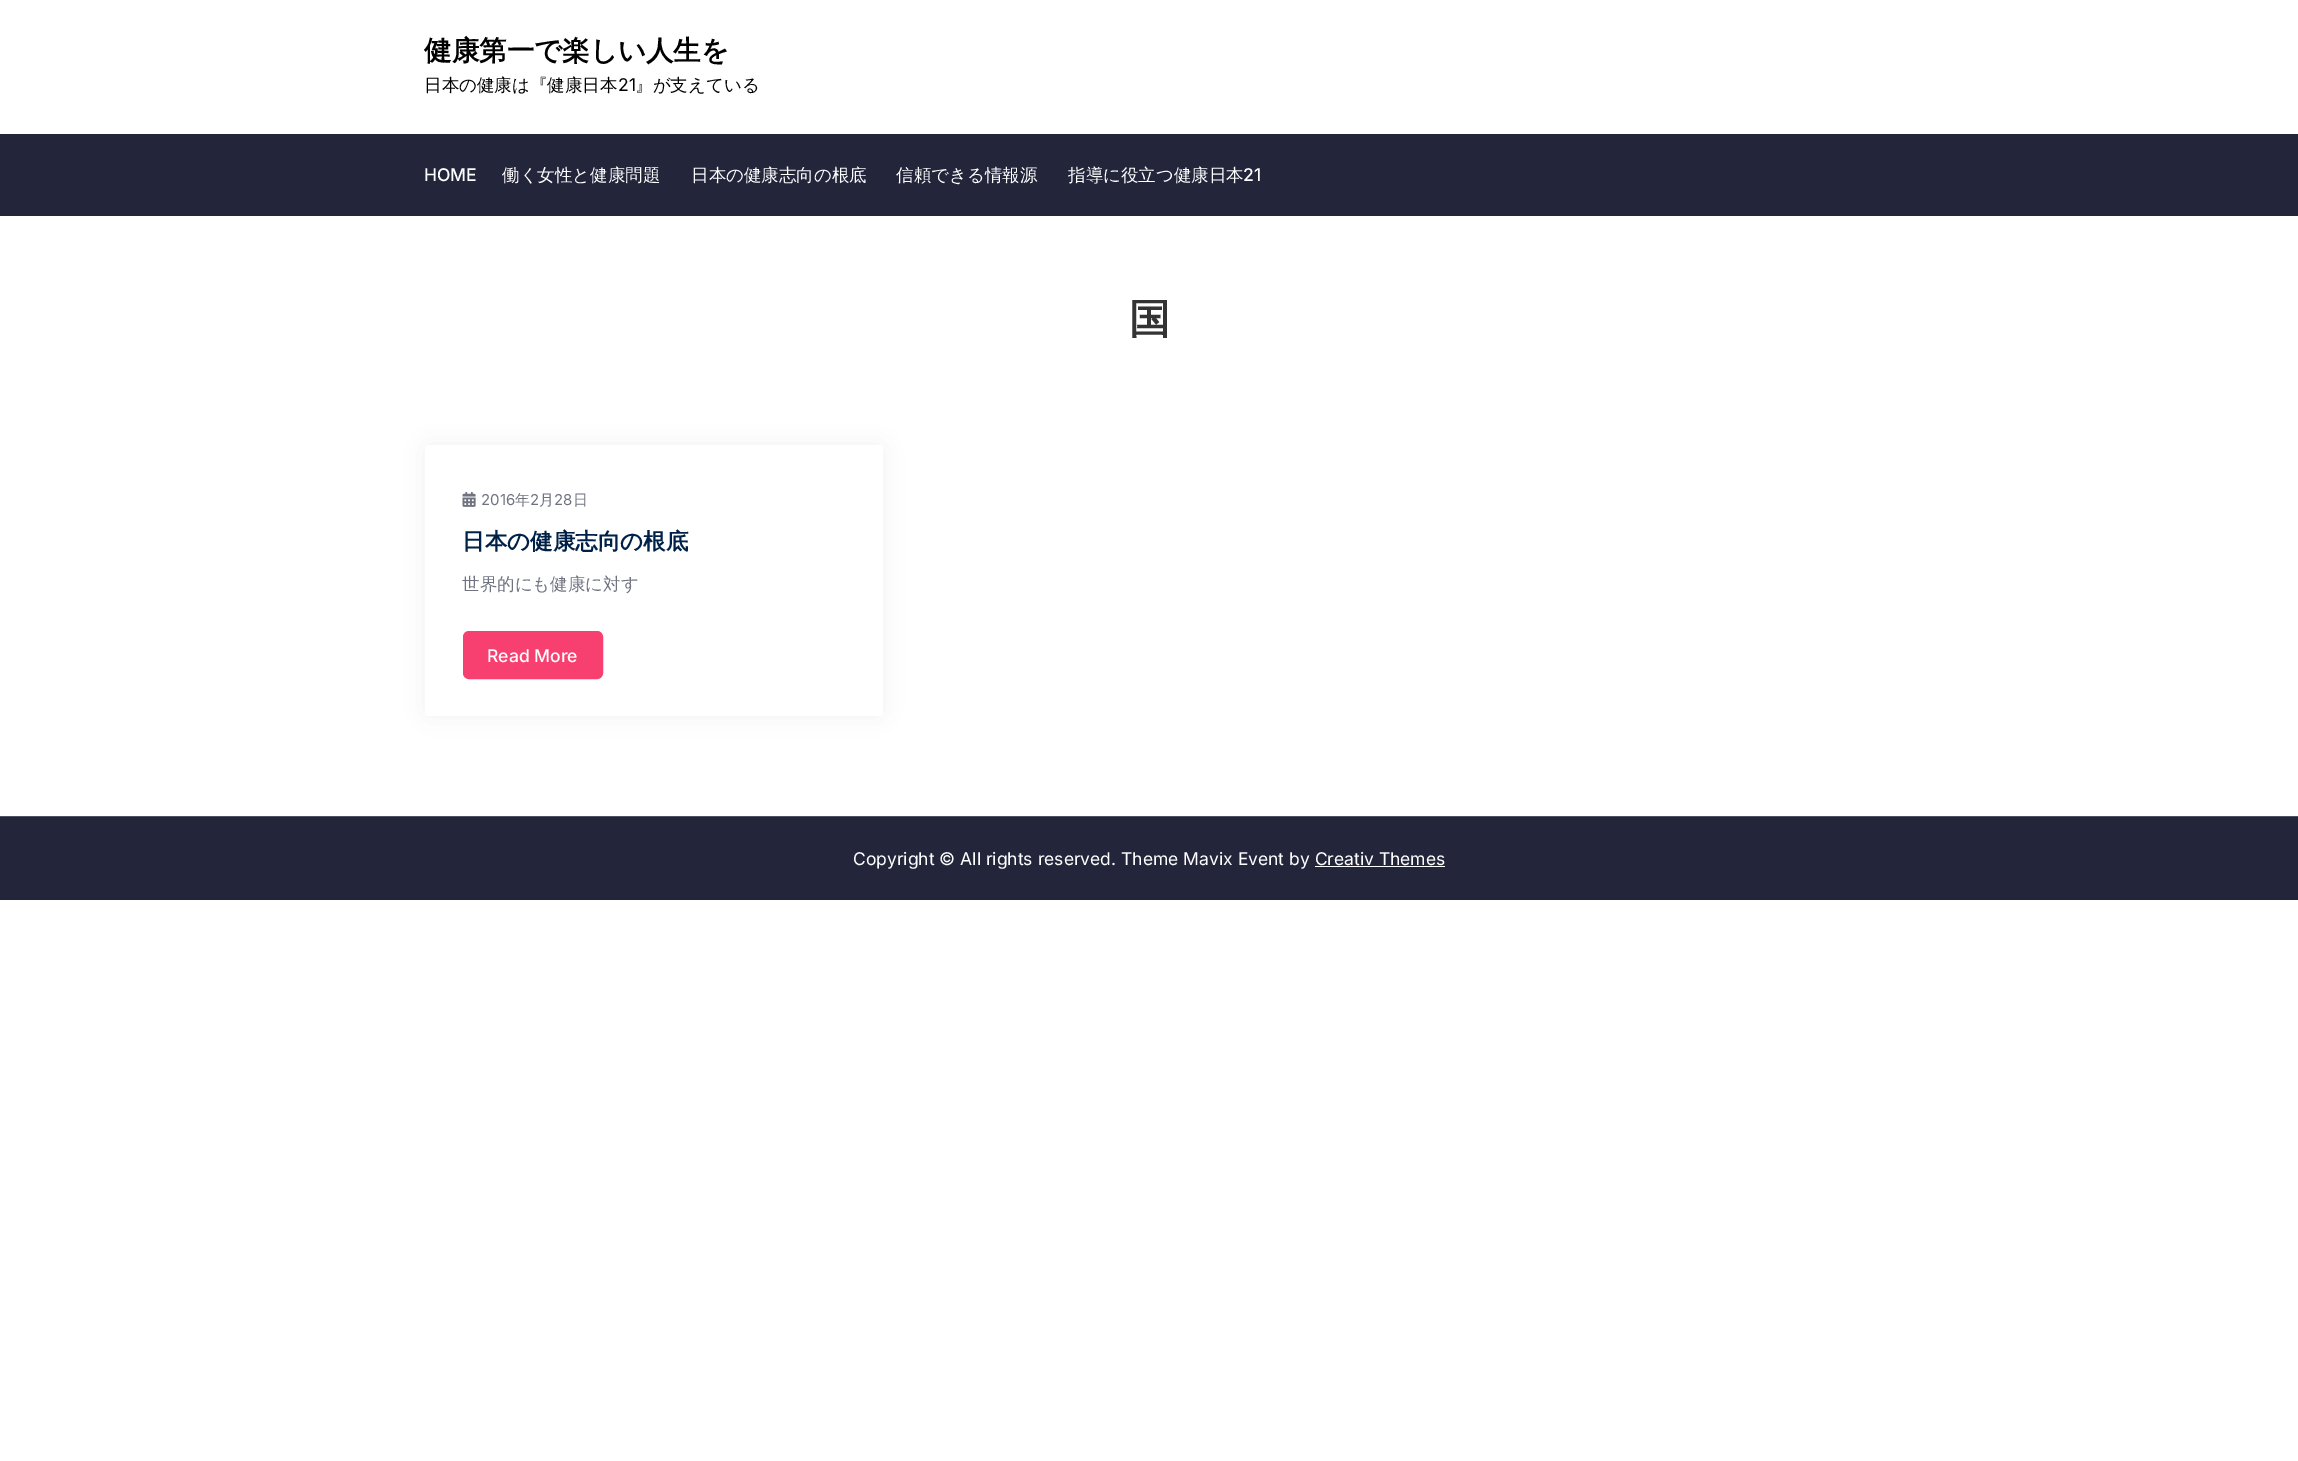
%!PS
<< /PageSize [2298 1461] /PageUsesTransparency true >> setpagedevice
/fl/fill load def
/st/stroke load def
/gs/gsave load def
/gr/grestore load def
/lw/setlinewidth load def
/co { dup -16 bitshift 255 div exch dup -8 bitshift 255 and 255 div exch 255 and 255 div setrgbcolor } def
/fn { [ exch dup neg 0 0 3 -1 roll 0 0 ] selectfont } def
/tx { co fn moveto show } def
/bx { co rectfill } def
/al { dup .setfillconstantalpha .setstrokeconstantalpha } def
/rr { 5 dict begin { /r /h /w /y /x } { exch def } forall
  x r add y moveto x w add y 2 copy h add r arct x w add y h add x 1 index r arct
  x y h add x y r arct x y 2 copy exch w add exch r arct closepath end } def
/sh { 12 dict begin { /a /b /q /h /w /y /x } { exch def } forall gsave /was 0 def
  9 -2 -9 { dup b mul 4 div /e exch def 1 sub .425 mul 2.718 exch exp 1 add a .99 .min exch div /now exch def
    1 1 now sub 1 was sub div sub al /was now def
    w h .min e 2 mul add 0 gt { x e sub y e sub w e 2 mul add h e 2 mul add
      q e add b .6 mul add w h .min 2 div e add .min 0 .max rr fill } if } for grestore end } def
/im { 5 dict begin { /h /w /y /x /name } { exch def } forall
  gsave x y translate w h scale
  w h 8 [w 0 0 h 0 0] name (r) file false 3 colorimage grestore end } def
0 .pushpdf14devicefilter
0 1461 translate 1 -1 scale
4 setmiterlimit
0 0 2298 1461 16#FFFFFF bx
0 134 2298 82 16#23253B bx
16#000000 co
425 445 458 271 4 12.5 .06 sh
16#FFFFFF co
425 445 458 271 4 rr fl
(media/1.raw) 462 491 14 16 im
16#F74070 co
464.5 632.5 137 45 4.5 rr gs fl gr
3 lw
st
0 817 2298 83 16#23253B bx
0 816 2298 1 16#4F5162 bx
1315 866 130 1 16#FFFFFF bx
(健康第一で楽しい人生を) 424 60 /WenQuanYiZenHei-Bold 27.5 16#000000 tx
(日本の健康は『健康日本) 424 91 /WenQuanYiZenHei-Medium 17.5 16#000000 tx
(21) 618 91 /Inter-Regular 17.5 16#000000 tx
(』が支えている) 635 91 /WenQuanYiZenHei-Medium 17.5 16#000000 tx
(HOME) 424 181 /Inter-Medium 17.5 16#FFFFFF tx
(働く女性と健康問題) 502 181 /WenQuanYiZenHei-Medium 17.5 16#FFFFFF tx
(日本の健康志向の根底) 691 181 /WenQuanYiZenHei-Medium 17.5 16#FFFFFF tx
(信頼できる情報源) 896 181 /WenQuanYiZenHei-Medium 17.5 16#FFFFFF tx
(指導に役立つ健康日本) 1068 181 /WenQuanYiZenHei-Medium 17.5 16#FFFFFF tx
(21) 1243 181 /Inter-Medium 17.5 16#FFFFFF tx
(国) 1129 333 /WenQuanYiZenHei-Bold 41 16#333333 tx
(2016) 481 505 /Inter-Regular 15 16#6F7380 tx
(年) 515 505 /WenQuanYiZenHei-Medium 15 16#6F7380 tx
(2) 530 505 /Inter-Regular 15 16#6F7380 tx
(月) 539 505 /WenQuanYiZenHei-Medium 15 16#6F7380 tx
(28) 554 505 /Inter-Regular 15 16#6F7380 tx
(日) 573 505 /WenQuanYiZenHei-Medium 15 16#6F7380 tx
(日本の健康志向の根底) 462 549 /WenQuanYiZenHei-Bold 22.5 16#002147 tx
(世界的にも健康に対す) 462 590 /WenQuanYiZenHei-Medium 17.5 16#6F7380 tx
(Read More) 487 662 /Inter-Medium 17.5 16#FFFFFF tx
(Copyright © All rights reserved. Theme Mavix Event by Creativ Themes) 853 865 /Inter-Regular 17.5 16#FFFFFF tx
.poppdf14devicefilter showpage
